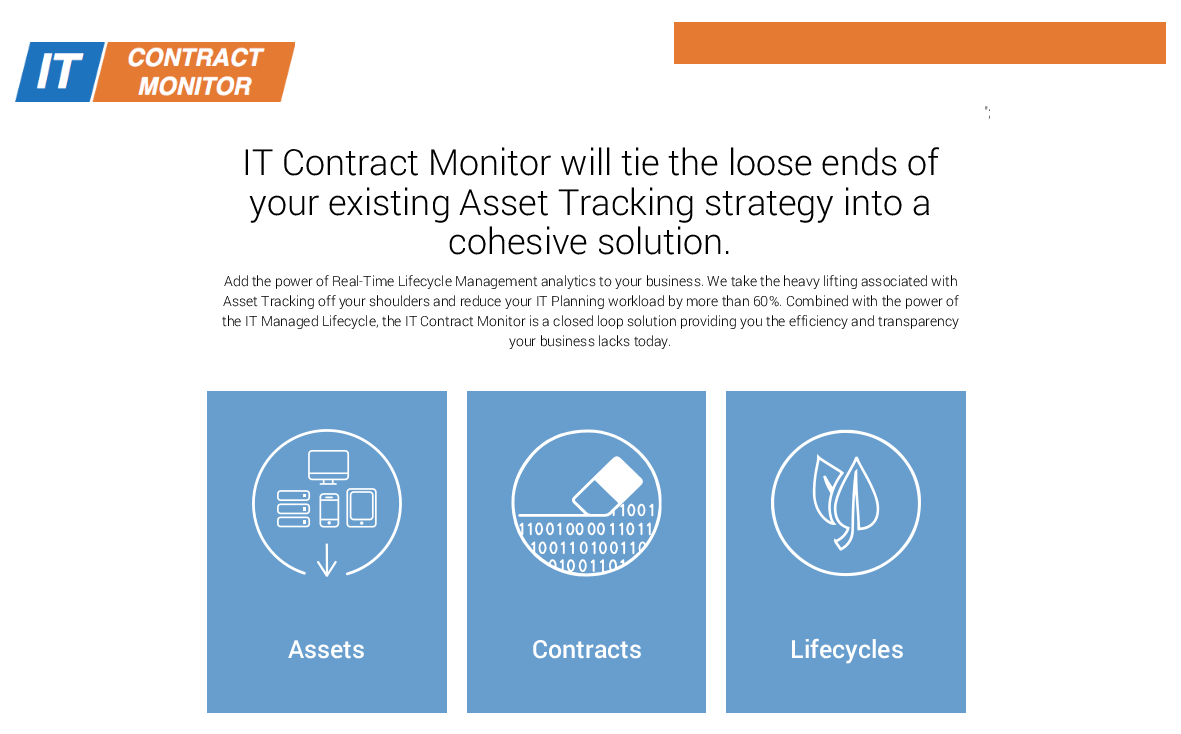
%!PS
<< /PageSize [1181 734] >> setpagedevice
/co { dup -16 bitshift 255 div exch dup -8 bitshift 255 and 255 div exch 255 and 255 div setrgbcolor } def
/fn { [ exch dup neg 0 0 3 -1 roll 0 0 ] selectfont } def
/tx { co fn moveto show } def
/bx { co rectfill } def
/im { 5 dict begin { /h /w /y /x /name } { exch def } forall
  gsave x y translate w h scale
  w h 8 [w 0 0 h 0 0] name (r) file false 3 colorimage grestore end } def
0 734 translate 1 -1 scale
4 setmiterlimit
0 0 1181 734 16#FFFFFF bx
(media/1.raw) 15 42 280 60 im
674 22 492 42 16#E57A32 bx
207 391 240 322 16#689ECE bx
(media/2.raw) 252 429 150 148 im
467 391 239 322 16#689ECE bx
(media/3.raw) 511 429 151 148 im
726 391 240 322 16#689ECE bx
(media/4.raw) 771 429 150 148 im
(";) 984 117 /Roboto-Light 14 16#333333 tx
(IT Contract Monitor will tie the loose ends of) 242 175 /Roboto-Light 36 16#000000 tx
(your existing Asset Tracking strategy into a) 249 215 /Roboto-Light 36 16#000000 tx
(cohesive solution.) 448 254 /Roboto-Light 36 16#000000 tx
(Add the power of Real-Time Lifecycle Management analytics to your business. We take the heavy lifting associated with) 224 286 /Roboto-Light 14 16#000000 tx
(Asset Tracking off your shoulders and reduce your IT Planning workload by more than 60%. Combined with the power of) 223 306 /Roboto-Light 14 16#000000 tx
(the IT Managed Lifecycle, the IT Contract Monitor is a closed loop solution providing you the efficiency and transparency) 222 326 /Roboto-Light 14 16#000000 tx
(your business lacks today.) 509 346 /Roboto-Light 14 16#000000 tx
(Assets) 288 658 /Roboto-Medium 25 16#FFFFFF tx
(Contracts) 532 658 /Roboto-Medium 25 16#FFFFFF tx
(Lifecycles) 790 658 /Roboto-Medium 25 16#FFFFFF tx
showpage
